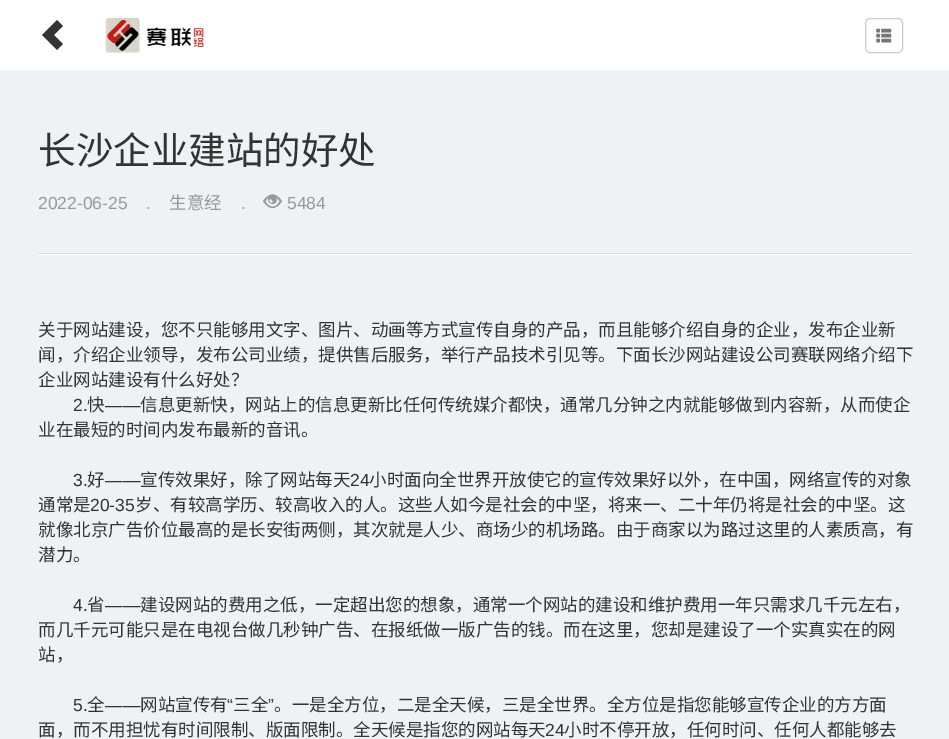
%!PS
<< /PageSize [949 739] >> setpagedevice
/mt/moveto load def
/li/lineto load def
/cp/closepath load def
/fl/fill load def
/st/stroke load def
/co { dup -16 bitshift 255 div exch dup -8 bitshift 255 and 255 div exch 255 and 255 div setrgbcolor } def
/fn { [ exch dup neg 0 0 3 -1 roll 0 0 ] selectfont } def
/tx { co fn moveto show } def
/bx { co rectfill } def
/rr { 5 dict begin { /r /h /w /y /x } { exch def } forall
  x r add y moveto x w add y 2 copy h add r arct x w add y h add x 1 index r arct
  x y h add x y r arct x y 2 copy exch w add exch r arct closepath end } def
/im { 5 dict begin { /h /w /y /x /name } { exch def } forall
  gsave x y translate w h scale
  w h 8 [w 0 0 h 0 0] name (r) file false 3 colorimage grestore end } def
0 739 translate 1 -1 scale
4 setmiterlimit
0 0 949 739 16#EFF2F4 bx
0 0 949 70 16#FFFFFF bx
16#333333 co
42 35 mt 57 50 li 63 44 li 54 35 li 63 26 li 57 20 li cp fl
(media/1.raw) 105 18 99 35 im
16#CCCCCC co
865.5 18.5 37 34 4.5 rr st
(media/2.raw) 876 28 16 15 im
38 253 875 1 16#DADADA bx
(media/3.raw) 263 194 19 15 im
38 254 875 1 16#FFFFFF bx
(长沙企业建站的好处) 38 164 /NotoSansCJKSC-Regular 37.5 16#333333 tx
(2022-06-25) 38 209 /LiberationSans-Regular 17.5 16#999999 tx
(.) 146 209 /LiberationSans-Regular 17.5 16#AAAAAA tx
(生意经) 169 209 /NotoSansCJKSC-Regular 17.5 16#999999 tx
(.) 241 209 /LiberationSans-Regular 17.5 16#AAAAAA tx
(5484) 287 209 /LiberationSans-Regular 17.5 16#999999 tx
(关于网站建设，您不只能够用文字、图片、动画等方式宣传自身的产品，而且能够介绍自身的企业，发布企业新) 38 336 /NotoSansCJKSC-Regular 17.5 16#333333 tx
(闻，介绍企业领导，发布公司业绩，提供售后服务，举行产品技术引见等。下面长沙网站建设公司赛联网络介绍下) 38 361 /NotoSansCJKSC-Regular 17.5 16#333333 tx
(企业网站建设有什么好处？) 38 386 /NotoSansCJKSC-Regular 17.5 16#333333 tx
(2.) 73 411 /LiberationSans-Regular 17.5 16#333333 tx
(快) 87 411 /NotoSansCJKSC-Regular 17.5 16#333333 tx
(——) 105 411 /LiberationSans-Regular 17.5 16#333333 tx
(信息更新快，网站上的信息更新比任何传统媒介都快，通常几分钟之内就能够做到内容新，从而使企) 140 411 /NotoSansCJKSC-Regular 17.5 16#333333 tx
(业在最短的时间内发布最新的音讯。) 38 436 /NotoSansCJKSC-Regular 17.5 16#333333 tx
(3.) 73 486 /LiberationSans-Regular 17.5 16#333333 tx
(好) 87 486 /NotoSansCJKSC-Regular 17.5 16#333333 tx
(——) 105 486 /LiberationSans-Regular 17.5 16#333333 tx
(宣传效果好，除了网站每天) 140 486 /NotoSansCJKSC-Regular 17.5 16#333333 tx
(24) 350 486 /LiberationSans-Regular 17.5 16#333333 tx
(小时面向全世界开放使它的宣传效果好以外，在中国，网络宣传的对象) 369 486 /NotoSansCJKSC-Regular 17.5 16#333333 tx
(通常是) 38 511 /NotoSansCJKSC-Regular 17.5 16#333333 tx
(20-35) 90 511 /LiberationSans-Regular 17.5 16#333333 tx
(岁、有较高学历、较高收入的人。这些人如今是社会的中坚，将来一、二十年仍将是社会的中坚。这) 135 511 /NotoSansCJKSC-Regular 17.5 16#333333 tx
(就像北京广告价位最高的是长安街两侧，其次就是人少、商场少的机场路。由于商家以为路过这里的人素质高，有) 38 536 /NotoSansCJKSC-Regular 17.5 16#333333 tx
(潜力。) 38 561 /NotoSansCJKSC-Regular 17.5 16#333333 tx
(4.) 73 611 /LiberationSans-Regular 17.5 16#333333 tx
(省) 87 611 /NotoSansCJKSC-Regular 17.5 16#333333 tx
(——) 105 611 /LiberationSans-Regular 17.5 16#333333 tx
(建设网站的费用之低，一定超出您的想象，通常一个网站的建设和维护费用一年只需求几千元左右，) 140 611 /NotoSansCJKSC-Regular 17.5 16#333333 tx
(而几千元可能只是在电视台做几秒钟广告、在报纸做一版广告的钱。而在这里，您却是建设了一个实真实在的网) 38 636 /NotoSansCJKSC-Regular 17.5 16#333333 tx
(站，) 38 661 /NotoSansCJKSC-Regular 17.5 16#333333 tx
(5.) 73 711 /LiberationSans-Regular 17.5 16#333333 tx
(全) 87 711 /NotoSansCJKSC-Regular 17.5 16#333333 tx
(网站宣传有) 140 711 /NotoSansCJKSC-Regular 17.5 16#333333 tx
(“) 227 711 /LiberationSans-Regular 17.5 16#333333 tx
(三全) 233 711 /NotoSansCJKSC-Regular 17.5 16#333333 tx
(”) 268 711 /LiberationSans-Regular 17.5 16#333333 tx
(。一是全方位，二是全天候，三是全世界。全方位是指您能够宣传企业的方方面) 274 711 /NotoSansCJKSC-Regular 17.5 16#333333 tx
(——) 105 711 /LiberationSans-Regular 17.5 16#333333 tx
(面，而不用担忧有时间限制、版面限制。全天候是指您的网站每天) 38 736 /NotoSansCJKSC-Regular 17.5 16#333333 tx
(24) 545 736 /LiberationSans-Regular 17.5 16#333333 tx
(小时不停开放，任何时问、任何人都能够去) 564 736 /NotoSansCJKSC-Regular 17.5 16#333333 tx
showpage
